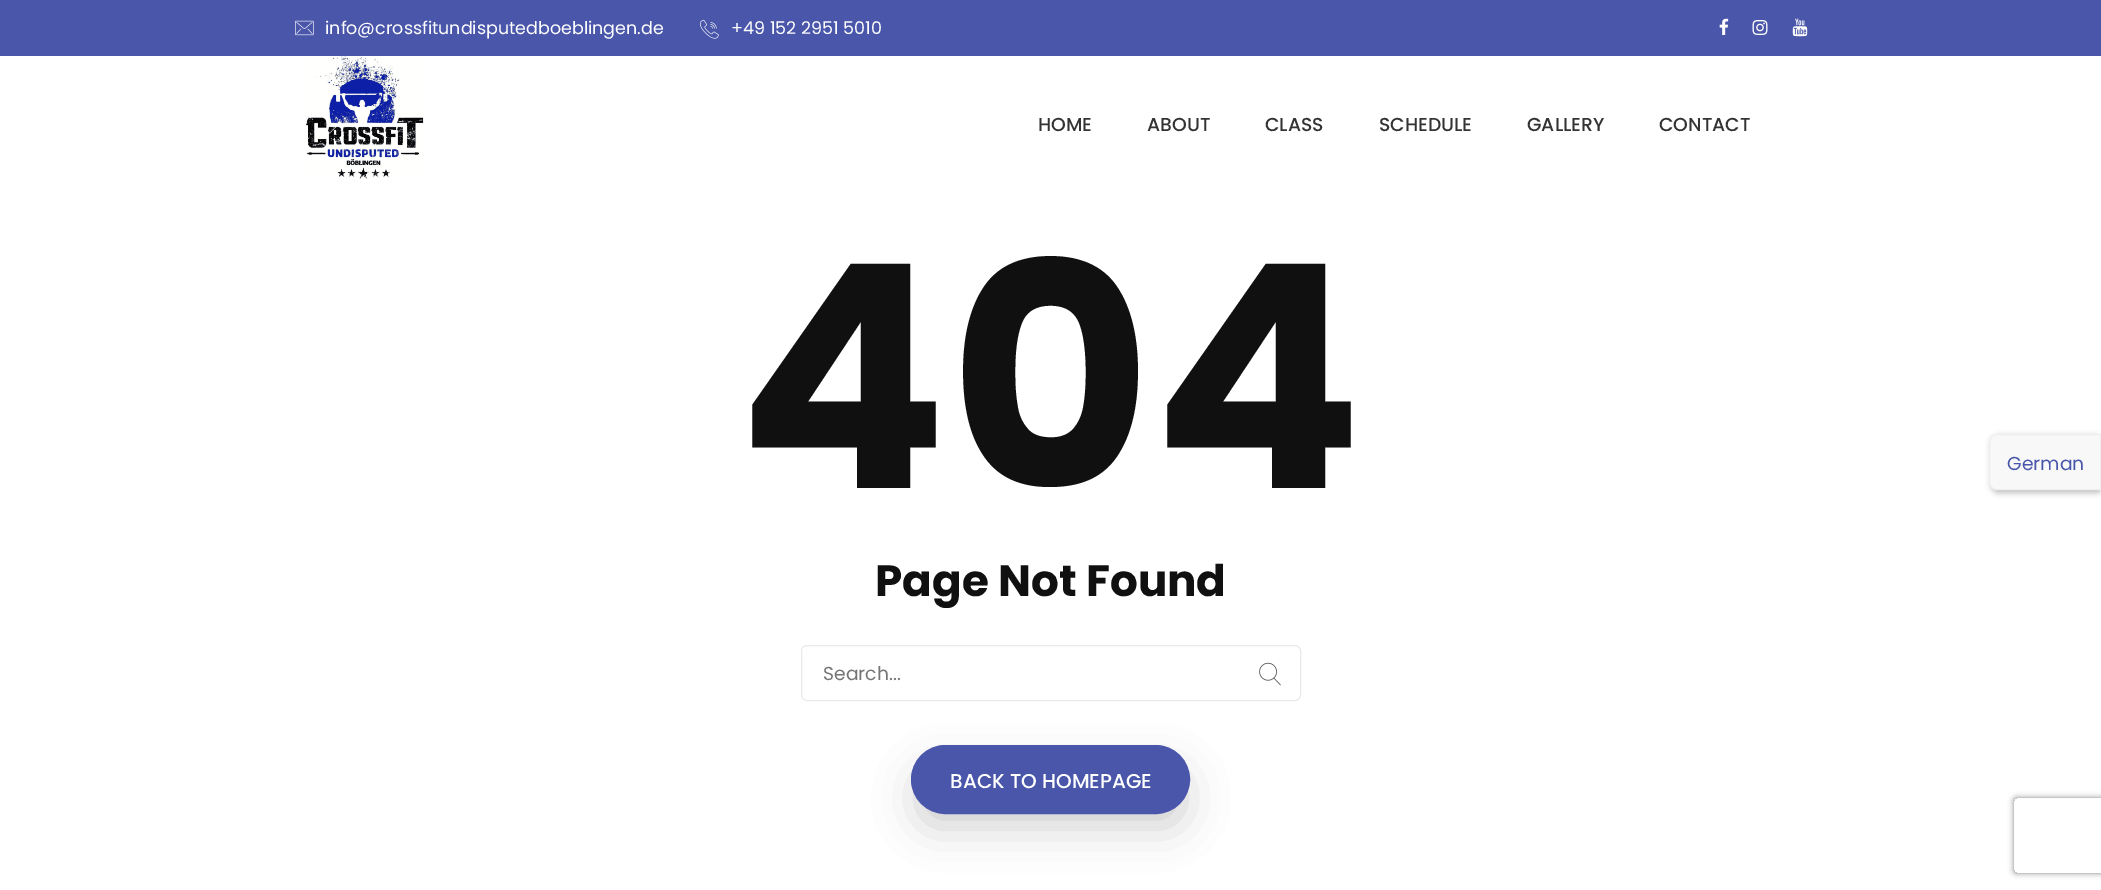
%!PS
<< /PageSize [2101 890] /PageUsesTransparency true >> setpagedevice
/mt/moveto load def
/li/lineto load def
/ct/curveto load def
/cp/closepath load def
/fl/fill load def
/st/stroke load def
/gs/gsave load def
/gr/grestore load def
/co { dup -16 bitshift 255 div exch dup -8 bitshift 255 and 255 div exch 255 and 255 div setrgbcolor } def
/fn { [ exch dup neg 0 0 3 -1 roll 0 0 ] selectfont } def
/tx { co fn moveto show } def
/bx { co rectfill } def
/al { dup .setfillconstantalpha .setstrokeconstantalpha } def
/rr { 5 dict begin { /r /h /w /y /x } { exch def } forall
  x r add y moveto x w add y 2 copy h add r arct x w add y h add x 1 index r arct
  x y h add x y r arct x y 2 copy exch w add exch r arct closepath end } def
/sh { 12 dict begin { /a /b /q /h /w /y /x } { exch def } forall gsave /was 0 def
  9 -2 -9 { dup b mul 4 div /e exch def 1 sub .425 mul 2.718 exch exp 1 add a .99 .min exch div /now exch def
    1 1 now sub 1 was sub div sub al /was now def
    w h .min e 2 mul add 0 gt { x e sub y e sub w e 2 mul add h e 2 mul add
      q e add b .6 mul add w h .min 2 div e add .min 0 .max rr fill } if } for grestore end } def
/im { 5 dict begin { /h /w /y /x /name } { exch def } forall
  gsave x y translate w h scale
  w h 8 [w 0 0 h 0 0] name (r) file false 3 colorimage grestore end } def
0 .pushpdf14devicefilter
0 890 translate 1 -1 scale
4 setmiterlimit
0 0 2101 890 16#FFFFFF bx
0 0 2101 56 16#4956AA bx
(media/1.raw) 295 20 19 16 im
(media/2.raw) 700 19 19 20 im
(media/3.raw) 1719 18 10 17 im
(media/4.raw) 1752 20 16 15 im
(media/5.raw) 1792 18 16 19 im
(media/6.raw) 306 56 118 123 im
16#EAEAEA co
801.5 645.5 499 55 5.5 rr st
(media/7.raw) 1259 662 22 24 im
16#C1C1C1 co
918 770 266 56 28 21 .8 sh
16#4956AA co
911.5 745.5 278 68 34 rr gs fl gr
st
16#000000 co
1991 436 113 57 8 3 .25 sh
16#F8F8F8 co
1997 434.5 mt 2100.5 434.5 li 2100.5 489.5 li 1997 489.5 li 1993 489.5 1989.5 486 1989.5 482 ct 1989.5 442 li 1989.5 438 1993 434.5 1997 434.5 ct cp gs fl gr
16#EEEEEE co
st
gs
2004 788 mt 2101 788 li 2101 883 li 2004 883 li cp 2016.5 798 mt 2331.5 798 li 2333 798 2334 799 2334 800.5 ct 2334 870.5 li 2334 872 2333 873 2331.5 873 ct 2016.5 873 li 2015 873 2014 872 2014 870.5 ct 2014 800.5 li 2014 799 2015 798 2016.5 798 ct cp eoclip newpath
16#808080 co
2014 798 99 75 2.5 3 1 sh
gr
(info@crossfitundisputedboeblingen.de) 325 34 /Poppins-Regular 17.5 16#FFFFFF tx
(+49 152 2951 5010) 731 34 /Poppins-Regular 17.5 16#FFFFFF tx
(HOME) 1038 131 /Poppins-Medium 18.75 16#333333 tx
(ABOUT) 1147 131 /Poppins-Medium 18.75 16#333333 tx
(CLASS) 1265 131 /Poppins-Medium 18.75 16#333333 tx
(SCHEDULE) 1379 131 /Poppins-Medium 18.75 16#333333 tx
(GALLERY) 1527 131 /Poppins-Medium 18.75 16#333333 tx
(CONTACT) 1659 131 /Poppins-Medium 18.75 16#333333 tx
(404) 737 488 /Poppins-Bold 312.5 16#101010 tx
(Page Not Found) 875 596 /Poppins-Bold 43.75 16#101010 tx
(Search...) 823 680 /Poppins-Regular 18.75 16#757575 tx
(BACK TO HOMEPAGE) 950 788 /Poppins-Medium 20 16#FFFFFF tx
(German) 2007 470 /Poppins-Regular 18.75 16#4956AA tx
.poppdf14devicefilter showpage
